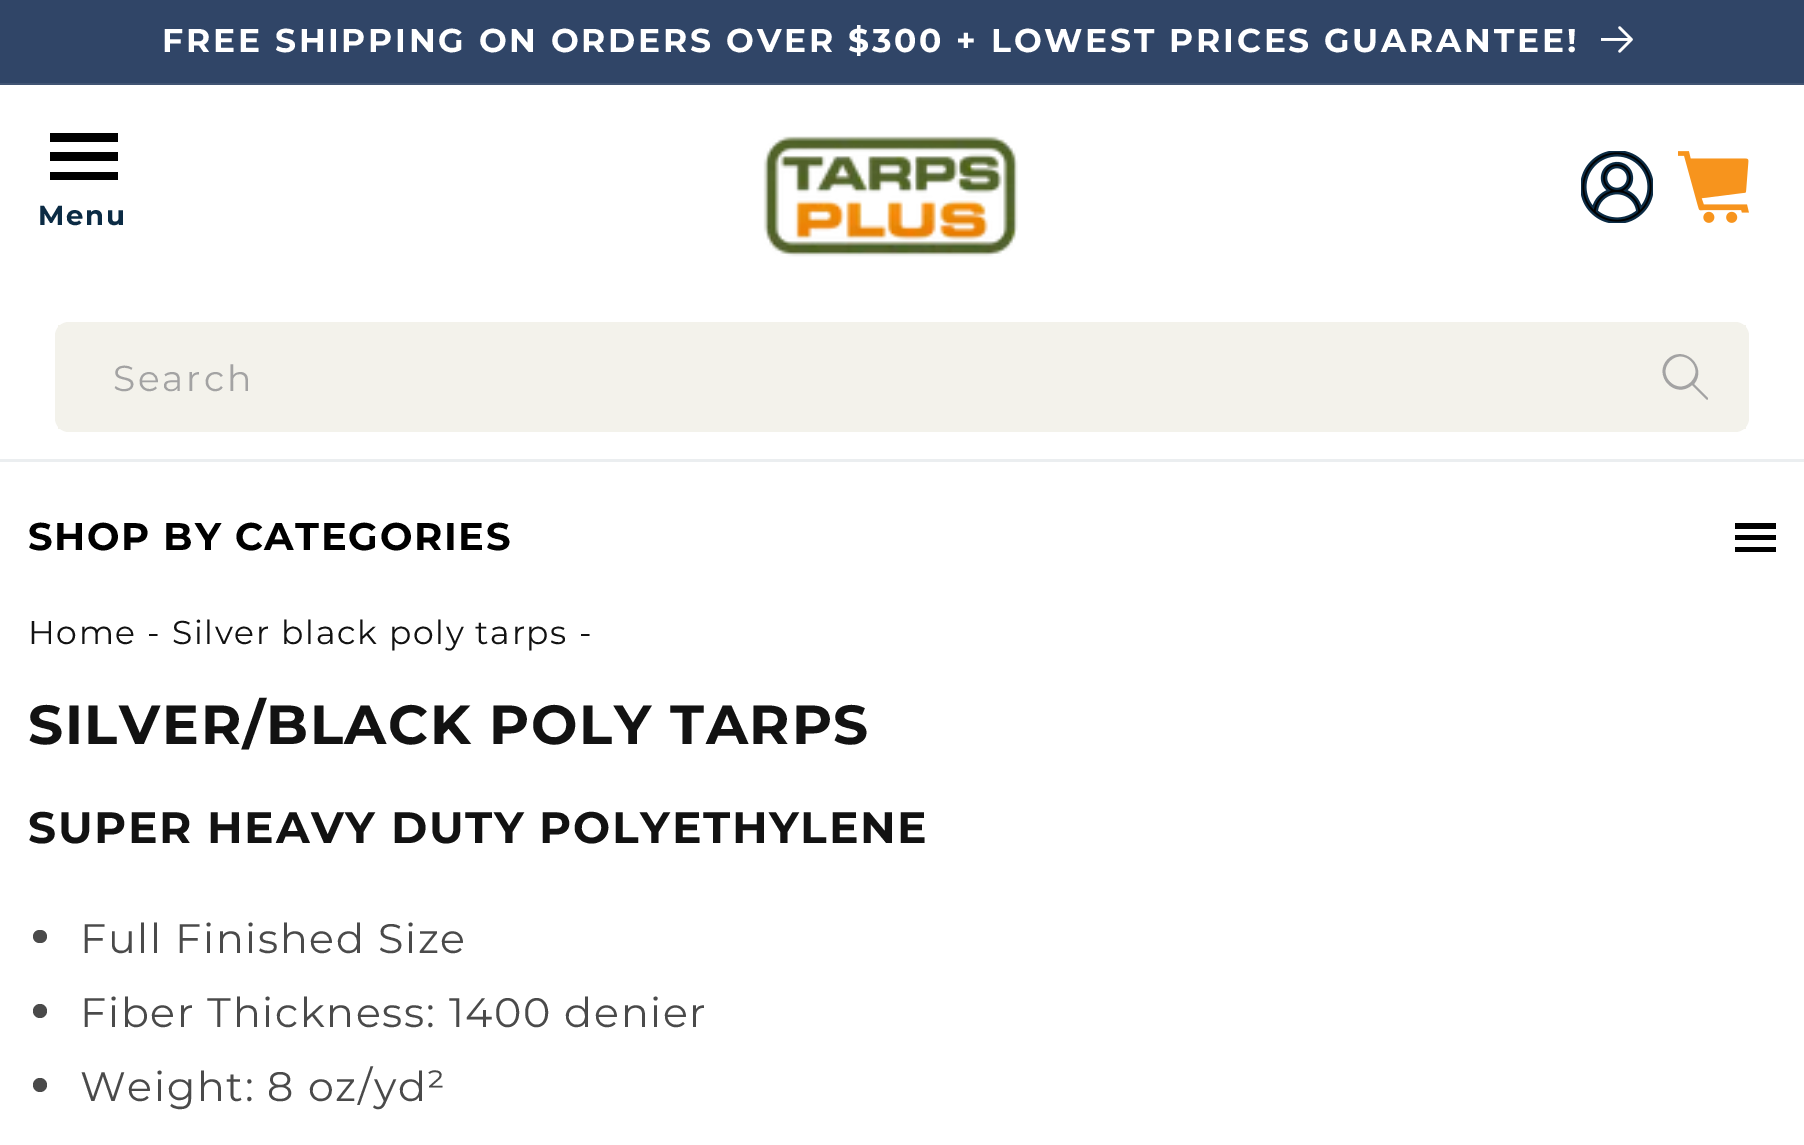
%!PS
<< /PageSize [1804 1145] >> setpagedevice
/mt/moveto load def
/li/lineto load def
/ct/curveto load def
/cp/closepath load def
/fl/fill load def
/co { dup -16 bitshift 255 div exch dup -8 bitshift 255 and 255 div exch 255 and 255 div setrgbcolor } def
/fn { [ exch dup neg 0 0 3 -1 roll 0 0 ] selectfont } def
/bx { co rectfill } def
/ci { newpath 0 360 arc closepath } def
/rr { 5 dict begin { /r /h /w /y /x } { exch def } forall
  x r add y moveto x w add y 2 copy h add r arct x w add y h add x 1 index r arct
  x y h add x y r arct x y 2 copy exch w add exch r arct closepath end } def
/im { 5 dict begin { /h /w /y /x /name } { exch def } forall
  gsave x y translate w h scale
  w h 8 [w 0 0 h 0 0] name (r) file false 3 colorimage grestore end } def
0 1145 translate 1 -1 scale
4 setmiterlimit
0 0 1804 1145 16#FFFFFF bx
0 0 1804 83 16#304567 bx
0 83 1804 2 16#415473 bx
(media/1.raw) 1601 26 32 27 im
0 459 1804 3 16#EBEEF0 bx
50 133 68 9 16#000000 bx
50 152 68 9 16#000000 bx
50 172 68 8 16#000000 bx
(media/2.raw) 763 136 255 121 im
(media/3.raw) 1581 151 72 72 im
(media/4.raw) 1678 151 71 72 im
16#F3F2EB co
55 322 1694 110 14 rr fl
58 325 1688 104 16#F3F2EB bx
16#A3A3A3 co
1691 382 mt 1677 396 1656 375 1670 361 ct 1684 347 1705 368 1691 382 ct 1692 385 mt 1675 400 1652 375 1668 359 ct 1684 344 1708 367 1694 384 ct 1708 398 li 1708 400 1707 400 1706 399 ct cp eofill
1735 523 41 6 16#000000 bx
1735 535 41 5 16#000000 bx
1735 547 41 5 16#000000 bx
16#4A4A4A co
33 930 14 13 6.5 rr fl
40 1011 7 ci fl
40 1085 7 ci fl
/Montserrat-Bold 33 fn
16#FFFFFF co
162 52 mt 2.75 0 (FREE SHIPPING ON ORDERS OVER $300 + LOWEST PRICES GUARANTEE!) ashow
/Montserrat-Bold 27.5 fn
16#0B2B44 co
38 225 mt 1.65 0 (Menu) ashow
/Montserrat-Regular 36 fn
16#A3A3A3 co
113 391 mt 2.75 0 (Search) ashow
/Montserrat-Bold 38.5 fn
16#000000 co
28 550 mt 1.65 0 (SHOP BY CATEGORIES) ashow
/Montserrat-Regular 33 fn
16#121212 co
28 644 mt 1.65 0 (Home - Silver black poly tarps -) ashow
/Montserrat-Bold 55 fn
28 744 mt 1.65 0 (SILVER/BLACK POLY TARPS) ashow
/Montserrat-Bold 44 fn
28 843 mt 1.65 0 (SUPER HEAVY DUTY POLYETHYLENE) ashow
/Montserrat-Regular 41.25 fn
16#4A4A4A co
80 953 mt 1.65 0 (Full Finished Size) ashow
80 1027 mt 1.65 0 (Fiber Thickness: 1400 denier) ashow
80 1101 mt 1.65 0 (Weight: 8 oz/yd²) ashow
showpage
